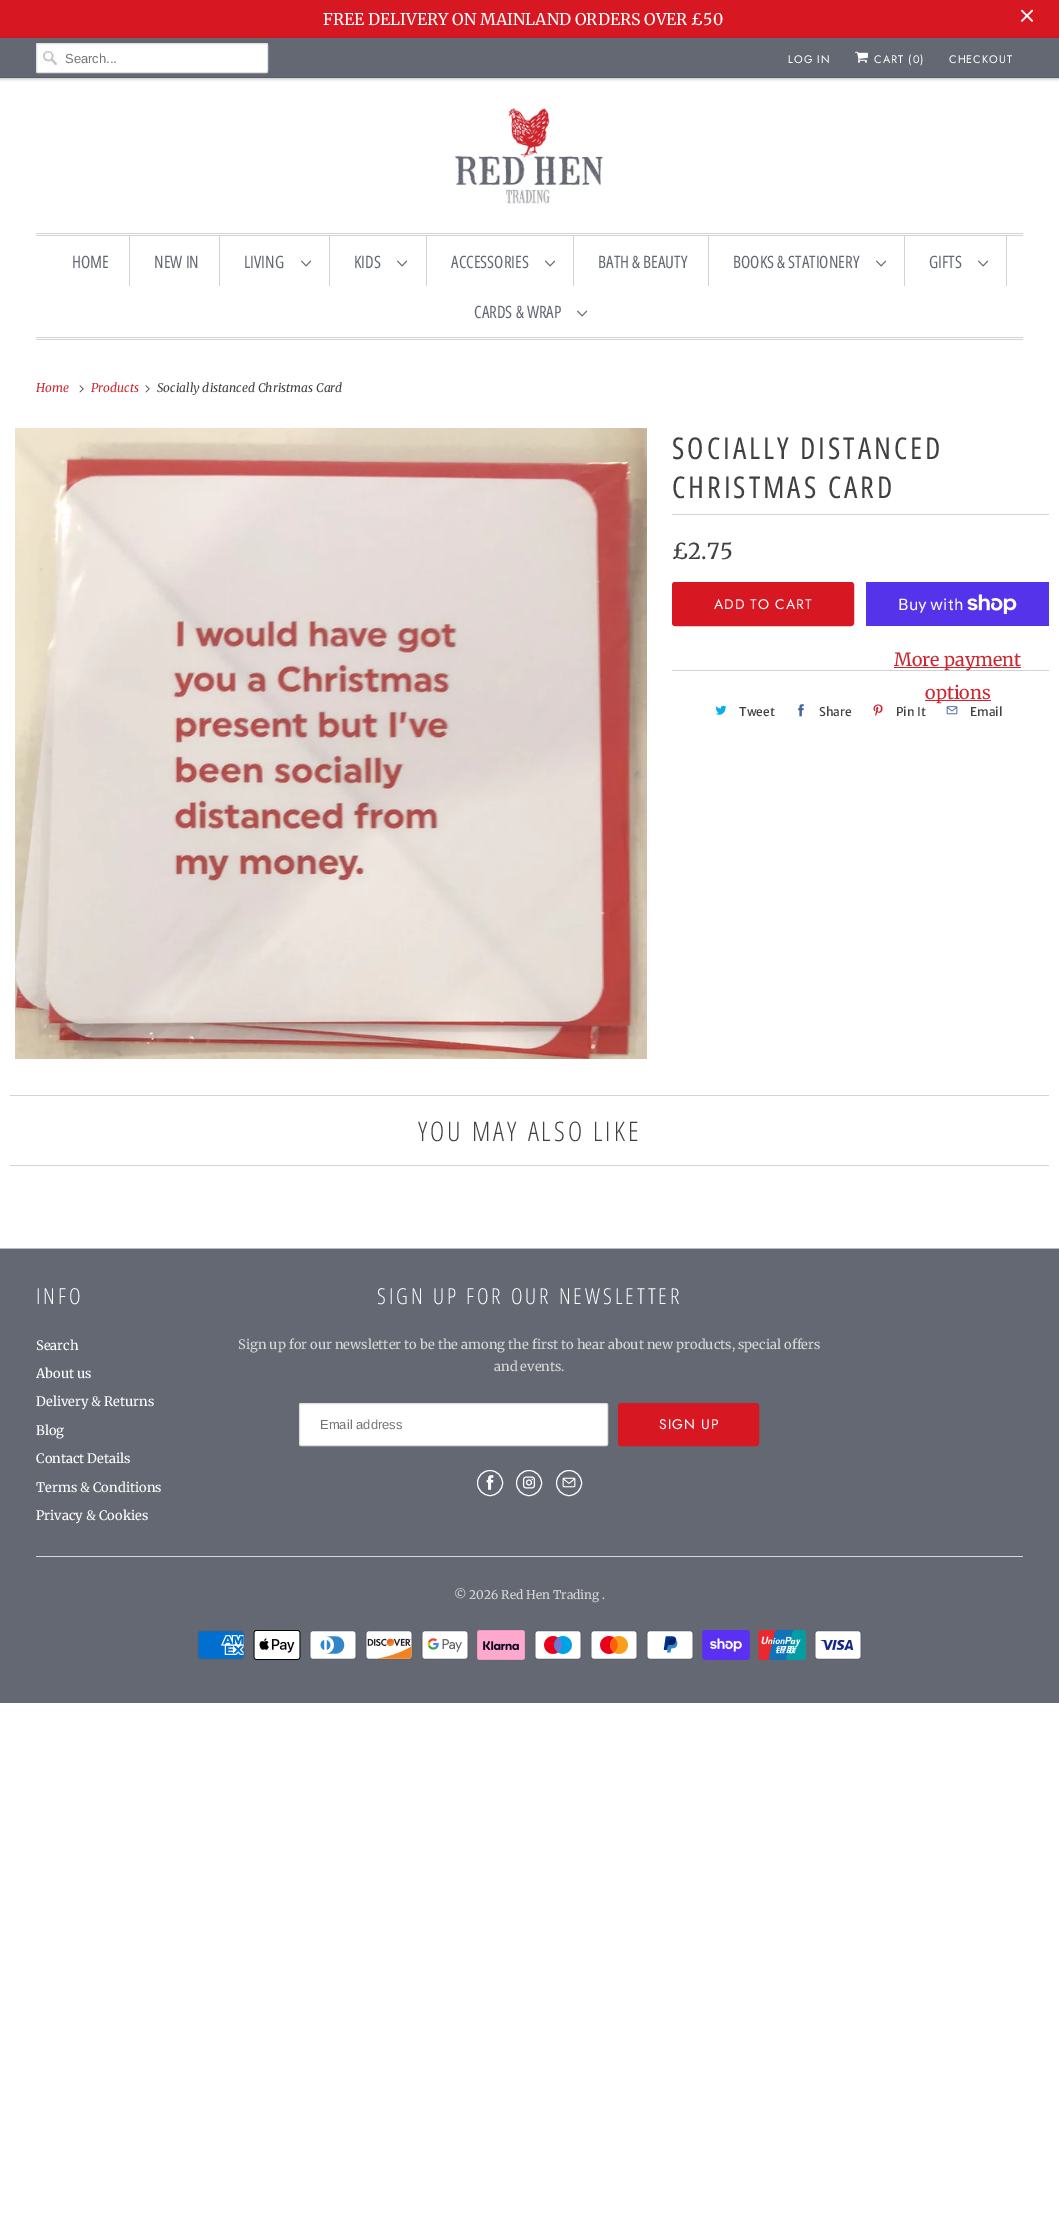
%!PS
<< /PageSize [1059 2216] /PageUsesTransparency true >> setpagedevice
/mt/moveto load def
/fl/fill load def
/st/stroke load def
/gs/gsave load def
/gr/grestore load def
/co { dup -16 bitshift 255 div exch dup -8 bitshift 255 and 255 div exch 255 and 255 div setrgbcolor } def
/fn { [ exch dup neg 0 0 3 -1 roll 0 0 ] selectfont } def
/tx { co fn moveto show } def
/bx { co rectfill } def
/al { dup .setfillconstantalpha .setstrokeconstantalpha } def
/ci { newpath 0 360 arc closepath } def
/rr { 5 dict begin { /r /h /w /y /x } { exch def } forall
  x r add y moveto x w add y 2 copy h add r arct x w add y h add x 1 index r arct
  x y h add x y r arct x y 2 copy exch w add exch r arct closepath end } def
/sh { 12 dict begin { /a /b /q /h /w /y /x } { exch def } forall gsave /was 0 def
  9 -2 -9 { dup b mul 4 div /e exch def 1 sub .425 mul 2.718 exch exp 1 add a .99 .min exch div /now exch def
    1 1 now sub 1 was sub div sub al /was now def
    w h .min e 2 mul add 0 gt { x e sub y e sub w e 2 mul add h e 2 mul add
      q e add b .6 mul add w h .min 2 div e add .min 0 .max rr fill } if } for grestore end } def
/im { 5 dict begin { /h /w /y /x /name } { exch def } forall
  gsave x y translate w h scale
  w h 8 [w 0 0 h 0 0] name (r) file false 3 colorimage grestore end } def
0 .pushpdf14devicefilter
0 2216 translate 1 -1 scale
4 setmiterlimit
0 0 1059 2216 16#FFFFFF bx
0 0 1059 38 16#D71722 bx
(media/1.raw) 1021 9 12 13 im
16#000000 co
0 39 1059 40 0 1.5 .25 sh
0 38 1059 39 16#646873 bx
0 77 1059 1 16#5A5E68 bx
16#FFFFFF co
36 43 232 30 2 rr fl
(media/2.raw) 43 51 14 14 im
16#DFDFDF co
36.5 43.5 231 29 1.5 rr st
(media/3.raw) 855 51 13 12 im
(media/4.raw) 454 108 150 96 im
36 233 987 1 16#D3D3D3 bx
36 235 987 1 16#D3D3D3 bx
36 337 987 1 16#D3D3D3 bx
36 339 987 1 16#D3D3D3 bx
129 236 1 50 16#D3D3D3 bx
219 236 1 50 16#D3D3D3 bx
329 236 1 50 16#D3D3D3 bx
(media/5.raw) 301 260 11 7 im
426 236 1 50 16#D3D3D3 bx
(media/5.raw) 397 260 11 7 im
573 236 1 50 16#D3D3D3 bx
(media/5.raw) 545 260 11 7 im
708 236 1 50 16#D3D3D3 bx
904 236 1 50 16#D3D3D3 bx
(media/5.raw) 876 260 11 7 im
1006 236 1 50 16#D3D3D3 bx
(media/5.raw) 978 260 11 7 im
(media/5.raw) 577 310 11 7 im
(media/6.raw) 79 385 5 8 im
(media/6.raw) 145 385 5 8 im
(media/7.raw) 15 428 632 631 im
672 514 377 1 16#D3D3D3 bx
16#D71722 co
672.5 582.5 181 43 2.5 rr gs fl gr
st
866 582 183 44 16#5433EB bx
(media/8.raw) 967 594 50 20 im
894 667 127 1 16#CF2630 bx
925 700 66 1 16#CF2630 bx
672 670 377 1 16#D3D3D3 bx
(media/9.raw) 715 705 12 10 im
(media/10.raw) 798 704 6 13 im
(media/11.raw) 873 704 10 12 im
(media/12.raw) 946 706 12 9 im
10 1095 1039 1 16#D3D3D3 bx
10 1165 1039 1 16#D3D3D3 bx
0 1249 1059 454 16#646873 bx
0 1248 1059 1 16#BBBBBB bx
16#FFFFFF co
299.5 1403.5 308 42 1.5 rr gs fl gr
16#DFDFDF co
st
16#D71722 co
618.5 1403.5 140 42 2.5 rr gs fl gr
st
16#FFFFFF co
490 1483 12.5 ci st
(media/13.raw) 486 1475 8 15 im
529 1483 12.5 ci st
(media/14.raw) 522 1476 14 13 im
569 1483 12.5 ci st
(media/15.raw) 562 1477 14 11 im
36 1556 987 1 16#D8D8D8 bx
(media/16.raw) 197 1630 48 30 im
(media/17.raw) 253 1630 48 30 im
(media/18.raw) 309 1630 48 30 im
(media/19.raw) 365 1630 48 30 im
(media/20.raw) 421 1630 48 30 im
(media/21.raw) 477 1630 48 30 im
(media/22.raw) 534 1630 48 30 im
(media/23.raw) 590 1630 48 30 im
(media/24.raw) 646 1630 48 30 im
(media/25.raw) 702 1630 48 30 im
(media/26.raw) 758 1630 48 30 im
(media/27.raw) 814 1630 48 30 im
(FREE DELIVERY ON MAINLAND ORDERS OVER £50) 323 25 /Merriweather-Regular 16 16#FFFFFF tx
(Search...) 65 63 /LiberationSans-Regular 13 16#757575 tx
/Jost-Regular 11 fn
16#FFFFFF co
788 63 mt 1 0 (LOG IN) ashow
874 63 mt 1 0 (CART \(0\)) ashow
949 63 mt 1 0 (CHECKOUT) ashow
(HOME) 72 268 /OpenSansCondensed-Regular 17 16#646873 tx
(NEW IN) 154 268 /OpenSansCondensed-Regular 17 16#646873 tx
(LIVING) 244 268 /OpenSansCondensed-Regular 17 16#646873 tx
(KIDS) 354 268 /OpenSansCondensed-Regular 17 16#646873 tx
(ACCESSORIES) 451 268 /OpenSansCondensed-Regular 17 16#646873 tx
(BATH & BEAUTY) 598 268 /OpenSansCondensed-Regular 17 16#646873 tx
(BOOKS & STATIONERY) 733 268 /OpenSansCondensed-Regular 17 16#646873 tx
(GIFTS) 929 268 /OpenSansCondensed-Regular 17 16#646873 tx
(CARDS & WRAP) 474 318 /OpenSansCondensed-Regular 17 16#646873 tx
(Home) 36 392 /Merriweather-Italic 12 16#CF2630 tx
(Products) 91 392 /Merriweather-Italic 12 16#CF2630 tx
(Socially distanced Christmas Card) 157 392 /Merriweather-Italic 12 16#404040 tx
/OpenSansCondensed-Regular 30 fn
672 459 mt 3 0 (SOCIALLY DISTANCED) ashow
672 498 mt 3 0 (CHRISTMAS CARD) ashow
(£2.75) 672 559 /Merriweather-Regular 22 16#404040 tx
/Jost-Regular 14 fn
16#FFFFFF co
714 609 mt 1 0 (ADD TO CART) ashow
(Buy with) 898 610 /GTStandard-Regular 16 16#FFFFFF tx
(More payment) 894 666 /Merriweather-Regular 18 16#CF2630 tx
(options) 925 699 /Merriweather-Regular 18 16#CF2630 tx
(Tweet) 739 716 /MerriweatherSans-Regular 12 16#404040 tx
(Share) 819 716 /MerriweatherSans-Regular 12 16#404040 tx
(Pin It) 896 716 /MerriweatherSans-Regular 12 16#404040 tx
(Email) 970 716 /MerriweatherSans-Regular 12 16#404040 tx
/OpenSansCondensed-Light 27 fn
418 1141 mt 3 0 (YOU MAY ALSO LIKE) ashow
/OpenSansCondensed-Light 22 fn
16#FFFFFF co
36 1304 mt 3 0 (INFO) ashow
(Search) 36 1350 /Merriweather-Regular 13 16#FFFFFF tx
(About us) 36 1378 /Merriweather-Regular 13 16#FFFFFF tx
(Delivery & Returns) 36 1406 /Merriweather-Regular 13 16#FFFFFF tx
(Blog) 36 1435 /Merriweather-Regular 13 16#FFFFFF tx
(Contact Details) 36 1463 /Merriweather-Regular 13 16#FFFFFF tx
(Terms & Conditions) 36 1492 /Merriweather-Regular 13 16#FFFFFF tx
(Privacy & Cookies) 36 1520 /Merriweather-Regular 13 16#FFFFFF tx
/OpenSansCondensed-Light 22 fn
377 1304 mt 3 0 (SIGN UP FOR OUR NEWSLETTER) ashow
(Sign up for our newsletter to be the among the first to hear about new products, special offers) 238 1349 /Merriweather-Regular 13 16#D8D8D8 tx
(and events.) 494 1371 /Merriweather-Regular 13 16#D8D8D8 tx
(Email address) 320 1429 /LiberationSans-Regular 13 16#757575 tx
/Jost-Regular 14 fn
16#FFFFFF co
659 1429 mt 1 0 (SIGN UP) ashow
(© 2026 Red Hen Trading .) 454 1599 /Merriweather-Regular 12 16#D8D8D8 tx
.poppdf14devicefilter showpage
